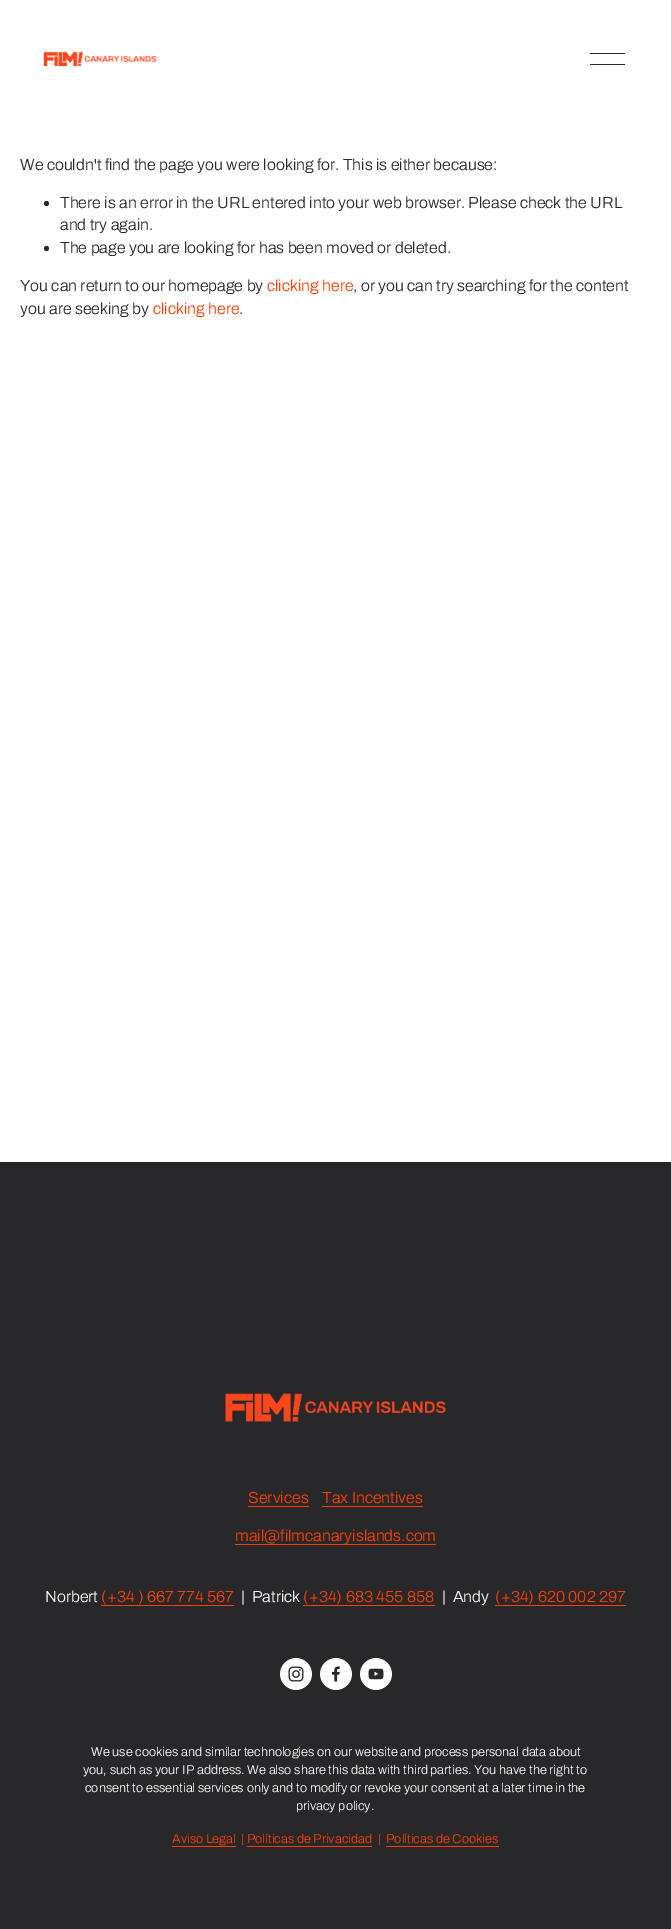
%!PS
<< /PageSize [671 1929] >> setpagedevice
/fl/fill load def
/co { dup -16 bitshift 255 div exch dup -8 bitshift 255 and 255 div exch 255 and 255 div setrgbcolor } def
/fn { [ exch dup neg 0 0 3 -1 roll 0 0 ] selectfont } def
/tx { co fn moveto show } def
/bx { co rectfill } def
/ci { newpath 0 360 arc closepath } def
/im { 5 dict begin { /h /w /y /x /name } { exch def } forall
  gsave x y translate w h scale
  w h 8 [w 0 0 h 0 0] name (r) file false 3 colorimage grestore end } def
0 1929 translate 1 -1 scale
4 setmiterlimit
0 0 671 1929 16#FFFFFF bx
(media/1.raw) 43 51 114 16 im
590 53 35 1 16#28282A bx
590 64 35 1 16#28282A bx
46.5 203.5 2.5 ci fl
46.5 248.5 2.5 ci fl
0 1162 671 767 16#28282A bx
(media/2.raw) 225 1393 221 29 im
248 1506 61 1 16#FF3F00 bx
322 1506 101 1 16#FF3F00 bx
235 1544 201 1 16#FF3F00 bx
101 1605 133 1 16#FF3F00 bx
303 1605 132 1 16#FF3F00 bx
495 1605 131 1 16#FF3F00 bx
(media/3.raw) 280 1658 32 32 im
(media/4.raw) 320 1658 32 32 im
(media/5.raw) 360 1658 32 32 im
172 1846 64 1 16#FF3F00 bx
386 1846 113 1 16#FF3F00 bx
247 1846 125 1 16#FF3F00 bx
(We couldn't find the page you were looking for. This is either because:) 20 170 /Archivo-Light 16 16#28282A tx
(There is an error in the URL entered into your web browser. Please check the URL) 60 208 /Archivo-Light 16 16#28282A tx
(and try again.) 60 230 /Archivo-Light 16 16#28282A tx
(The page you are looking for has been moved or deleted.) 60 253 /Archivo-Light 16 16#28282A tx
(You can return to our homepage by) 20 291 /Archivo-Light 16 16#28282A tx
(clicking here) 267 291 /Archivo-Light 16 16#FF3F00 tx
(, or you can try searching for the content) 353 291 /Archivo-Light 16 16#28282A tx
(you are seeking by) 20 314 /Archivo-Light 16 16#28282A tx
(clicking here) 153 314 /Archivo-Light 16 16#FF3F00 tx
(.) 239 314 /Archivo-Light 16 16#28282A tx
(Services) 248 1503 /Archivo-Light 16 16#FF3F00 tx
(Tax Incentives) 322 1503 /Archivo-Light 16 16#FF3F00 tx
(mail@filmcanaryislands.com) 235 1541 /Archivo-Light 16 16#FF3F00 tx
(Norbert) 45 1602 /Archivo-Light 16 16#FFFFFF tx
(\(+34 \) 667 774 567) 101 1602 /Archivo-Light 16 16#FF3F00 tx
(|  Patrick) 241 1602 /Archivo-Light 16 16#FFFFFF tx
(\(+34\) 683 455 858) 303 1602 /Archivo-Light 16 16#FF3F00 tx
(|  Andy) 442 1602 /Archivo-Light 16 16#FFFFFF tx
(\(+34\) 620 002 297) 495 1602 /Archivo-Light 16 16#FF3F00 tx
(We use cookies and similar technologies on our website and process personal data about) 91 1756 /Archivo-Light 12.75 16#FFFFFF tx
(you, such as your IP address. We also share this data with third parties. You have the right to) 83 1774 /Archivo-Light 12.75 16#FFFFFF tx
(consent to essential services only and to modify or revoke your consent at a later time in the) 85 1792 /Archivo-Light 12.75 16#FFFFFF tx
(privacy policy.) 296 1810 /Archivo-Light 12.75 16#FFFFFF tx
(Aviso Legal) 172 1843 /Archivo-Light 12.75 16#FF3F00 tx
(| Políticas de Privacidad) 241 1843 /Archivo-Light 12.75 16#FF3F00 tx
(|) 378 1843 /Archivo-Light 12.75 16#FF3F00 tx
(Políticas de Cookies) 386 1843 /Archivo-Light 12.75 16#FF3F00 tx
showpage
